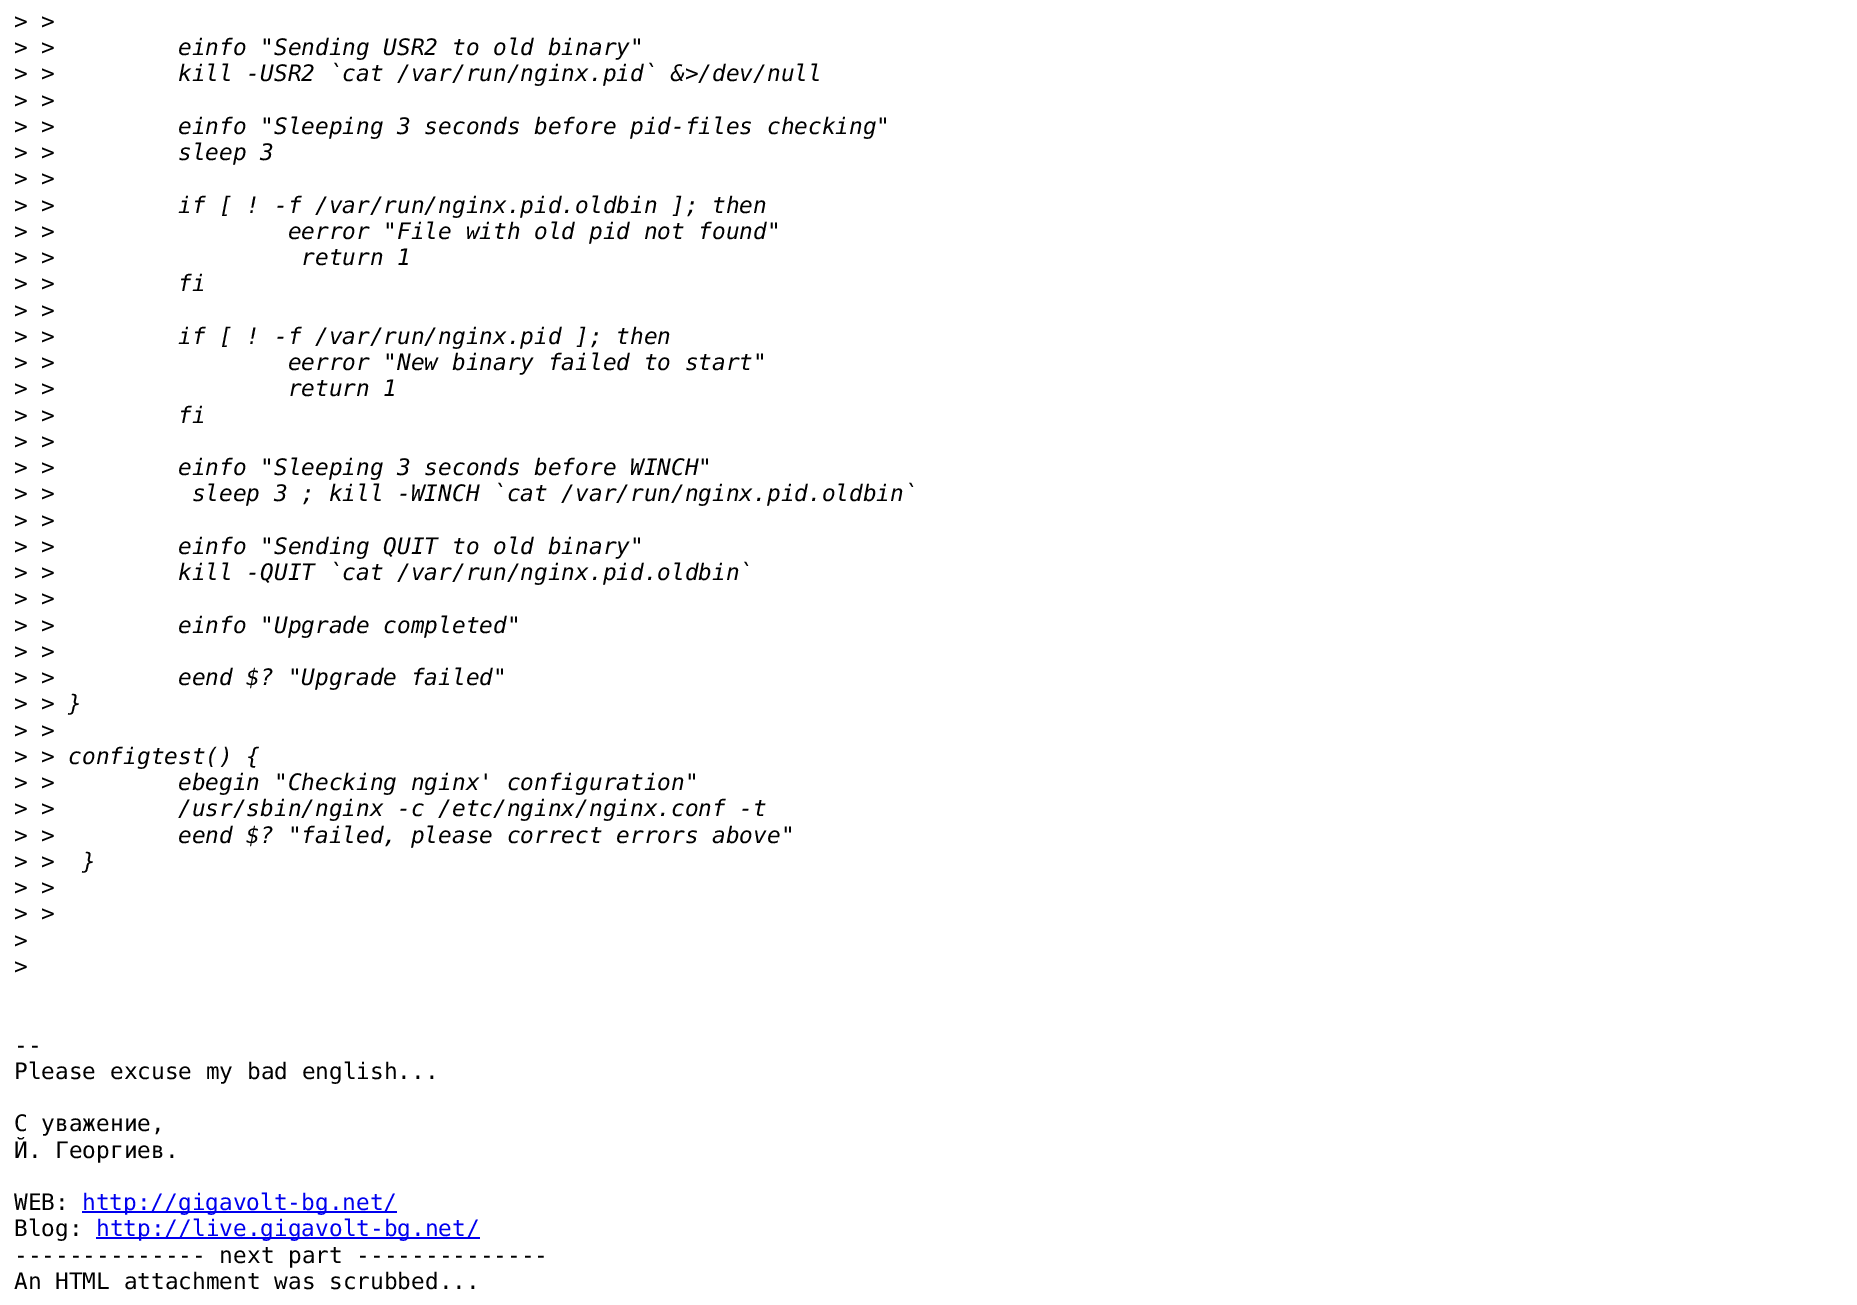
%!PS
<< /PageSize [1857 1305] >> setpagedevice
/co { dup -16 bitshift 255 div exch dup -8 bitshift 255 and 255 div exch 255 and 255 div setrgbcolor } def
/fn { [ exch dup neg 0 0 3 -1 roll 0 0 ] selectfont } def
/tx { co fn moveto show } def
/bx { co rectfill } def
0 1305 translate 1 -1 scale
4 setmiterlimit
0 0 1857 1305 16#FFFFFF bx
82 1211 315 2 16#0000EE bx
96 1237 384 2 16#0000EE bx
(>) 14 29 /DejaVuSansMono-Regular 22.75 16#000000 tx
(>) 41 29 /DejaVuSansMono-Italic 22.75 16#000000 tx
(>) 14 55 /DejaVuSansMono-Regular 22.75 16#000000 tx
(>         einfo "Sending USR2 to old binary") 41 55 /DejaVuSansMono-Italic 22.75 16#000000 tx
(>) 14 81 /DejaVuSansMono-Regular 22.75 16#000000 tx
(>         kill -USR2 `cat /var/run/nginx.pid` &>/dev/null) 41 81 /DejaVuSansMono-Italic 22.75 16#000000 tx
(>) 14 108 /DejaVuSansMono-Regular 22.75 16#000000 tx
(>) 41 108 /DejaVuSansMono-Italic 22.75 16#000000 tx
(>) 14 134 /DejaVuSansMono-Regular 22.75 16#000000 tx
(>         einfo "Sleeping 3 seconds before pid-files checking") 41 134 /DejaVuSansMono-Italic 22.75 16#000000 tx
(>) 14 160 /DejaVuSansMono-Regular 22.75 16#000000 tx
(>         sleep 3) 41 160 /DejaVuSansMono-Italic 22.75 16#000000 tx
(>) 14 186 /DejaVuSansMono-Regular 22.75 16#000000 tx
(>) 41 186 /DejaVuSansMono-Italic 22.75 16#000000 tx
(>) 14 213 /DejaVuSansMono-Regular 22.75 16#000000 tx
(>         if [ ! -f /var/run/nginx.pid.oldbin ]; then) 41 213 /DejaVuSansMono-Italic 22.75 16#000000 tx
(>) 14 239 /DejaVuSansMono-Regular 22.75 16#000000 tx
(>                 eerror "File with old pid not found") 41 239 /DejaVuSansMono-Italic 22.75 16#000000 tx
(>) 14 265 /DejaVuSansMono-Regular 22.75 16#000000 tx
(>                  return 1) 41 265 /DejaVuSansMono-Italic 22.75 16#000000 tx
(>) 14 291 /DejaVuSansMono-Regular 22.75 16#000000 tx
(>         fi) 41 291 /DejaVuSansMono-Italic 22.75 16#000000 tx
(>) 14 318 /DejaVuSansMono-Regular 22.75 16#000000 tx
(>) 41 318 /DejaVuSansMono-Italic 22.75 16#000000 tx
(>) 14 344 /DejaVuSansMono-Regular 22.75 16#000000 tx
(>         if [ ! -f /var/run/nginx.pid ]; then) 41 344 /DejaVuSansMono-Italic 22.75 16#000000 tx
(>) 14 370 /DejaVuSansMono-Regular 22.75 16#000000 tx
(>                 eerror "New binary failed to start") 41 370 /DejaVuSansMono-Italic 22.75 16#000000 tx
(>) 14 396 /DejaVuSansMono-Regular 22.75 16#000000 tx
(>                 return 1) 41 396 /DejaVuSansMono-Italic 22.75 16#000000 tx
(>) 14 423 /DejaVuSansMono-Regular 22.75 16#000000 tx
(>         fi) 41 423 /DejaVuSansMono-Italic 22.75 16#000000 tx
(>) 14 449 /DejaVuSansMono-Regular 22.75 16#000000 tx
(>) 41 449 /DejaVuSansMono-Italic 22.75 16#000000 tx
(>) 14 475 /DejaVuSansMono-Regular 22.75 16#000000 tx
(>         einfo "Sleeping 3 seconds before WINCH") 41 475 /DejaVuSansMono-Italic 22.75 16#000000 tx
(>) 14 501 /DejaVuSansMono-Regular 22.75 16#000000 tx
(>          sleep 3 ; kill -WINCH `cat /var/run/nginx.pid.oldbin`) 41 501 /DejaVuSansMono-Italic 22.75 16#000000 tx
(>) 14 528 /DejaVuSansMono-Regular 22.75 16#000000 tx
(>) 41 528 /DejaVuSansMono-Italic 22.75 16#000000 tx
(>) 14 554 /DejaVuSansMono-Regular 22.75 16#000000 tx
(>         einfo "Sending QUIT to old binary") 41 554 /DejaVuSansMono-Italic 22.75 16#000000 tx
(>) 14 580 /DejaVuSansMono-Regular 22.75 16#000000 tx
(>         kill -QUIT `cat /var/run/nginx.pid.oldbin`) 41 580 /DejaVuSansMono-Italic 22.75 16#000000 tx
(>) 14 606 /DejaVuSansMono-Regular 22.75 16#000000 tx
(>) 41 606 /DejaVuSansMono-Italic 22.75 16#000000 tx
(>) 14 633 /DejaVuSansMono-Regular 22.75 16#000000 tx
(>         einfo "Upgrade completed") 41 633 /DejaVuSansMono-Italic 22.75 16#000000 tx
(>) 14 659 /DejaVuSansMono-Regular 22.75 16#000000 tx
(>) 41 659 /DejaVuSansMono-Italic 22.75 16#000000 tx
(>) 14 685 /DejaVuSansMono-Regular 22.75 16#000000 tx
(>         eend $? "Upgrade failed") 41 685 /DejaVuSansMono-Italic 22.75 16#000000 tx
(>) 14 711 /DejaVuSansMono-Regular 22.75 16#000000 tx
(> }) 41 711 /DejaVuSansMono-Italic 22.75 16#000000 tx
(>) 14 738 /DejaVuSansMono-Regular 22.75 16#000000 tx
(>) 41 738 /DejaVuSansMono-Italic 22.75 16#000000 tx
(>) 14 764 /DejaVuSansMono-Regular 22.75 16#000000 tx
(> configtest\(\) {) 41 764 /DejaVuSansMono-Italic 22.75 16#000000 tx
(>) 14 790 /DejaVuSansMono-Regular 22.75 16#000000 tx
(>         ebegin "Checking nginx' configuration") 41 790 /DejaVuSansMono-Italic 22.75 16#000000 tx
(>) 14 816 /DejaVuSansMono-Regular 22.75 16#000000 tx
(>         /usr/sbin/nginx -c /etc/nginx/nginx.conf -t) 41 816 /DejaVuSansMono-Italic 22.75 16#000000 tx
(>) 14 843 /DejaVuSansMono-Regular 22.75 16#000000 tx
(>         eend $? "failed, please correct errors above") 41 843 /DejaVuSansMono-Italic 22.75 16#000000 tx
(>) 14 869 /DejaVuSansMono-Regular 22.75 16#000000 tx
(>  }) 41 869 /DejaVuSansMono-Italic 22.75 16#000000 tx
(>) 14 895 /DejaVuSansMono-Regular 22.75 16#000000 tx
(>) 41 895 /DejaVuSansMono-Italic 22.75 16#000000 tx
(>) 14 921 /DejaVuSansMono-Regular 22.75 16#000000 tx
(>) 41 921 /DejaVuSansMono-Italic 22.75 16#000000 tx
(>) 14 948 /DejaVuSansMono-Regular 22.75 16#000000 tx
(>) 14 974 /DejaVuSansMono-Regular 22.75 16#000000 tx
(--) 14 1053 /DejaVuSansMono-Regular 22.75 16#000000 tx
(Please excuse my bad english...) 14 1079 /DejaVuSansMono-Regular 22.75 16#000000 tx
(С уважение,) 14 1131 /DejaVuSansMono-Regular 22.75 16#000000 tx
(Й. Георгиев.) 14 1158 /DejaVuSansMono-Regular 22.75 16#000000 tx
(WEB:) 14 1210 /DejaVuSansMono-Regular 22.75 16#000000 tx
(http://gigavolt-bg.net/) 82 1210 /DejaVuSansMono-Regular 22.75 16#0000EE tx
(Blog:) 14 1236 /DejaVuSansMono-Regular 22.75 16#000000 tx
(http://live.gigavolt-bg.net/) 96 1236 /DejaVuSansMono-Regular 22.75 16#0000EE tx
(-------------- next part --------------) 14 1263 /DejaVuSansMono-Regular 22.75 16#000000 tx
(An HTML attachment was scrubbed...) 14 1289 /DejaVuSansMono-Regular 22.75 16#000000 tx
showpage
